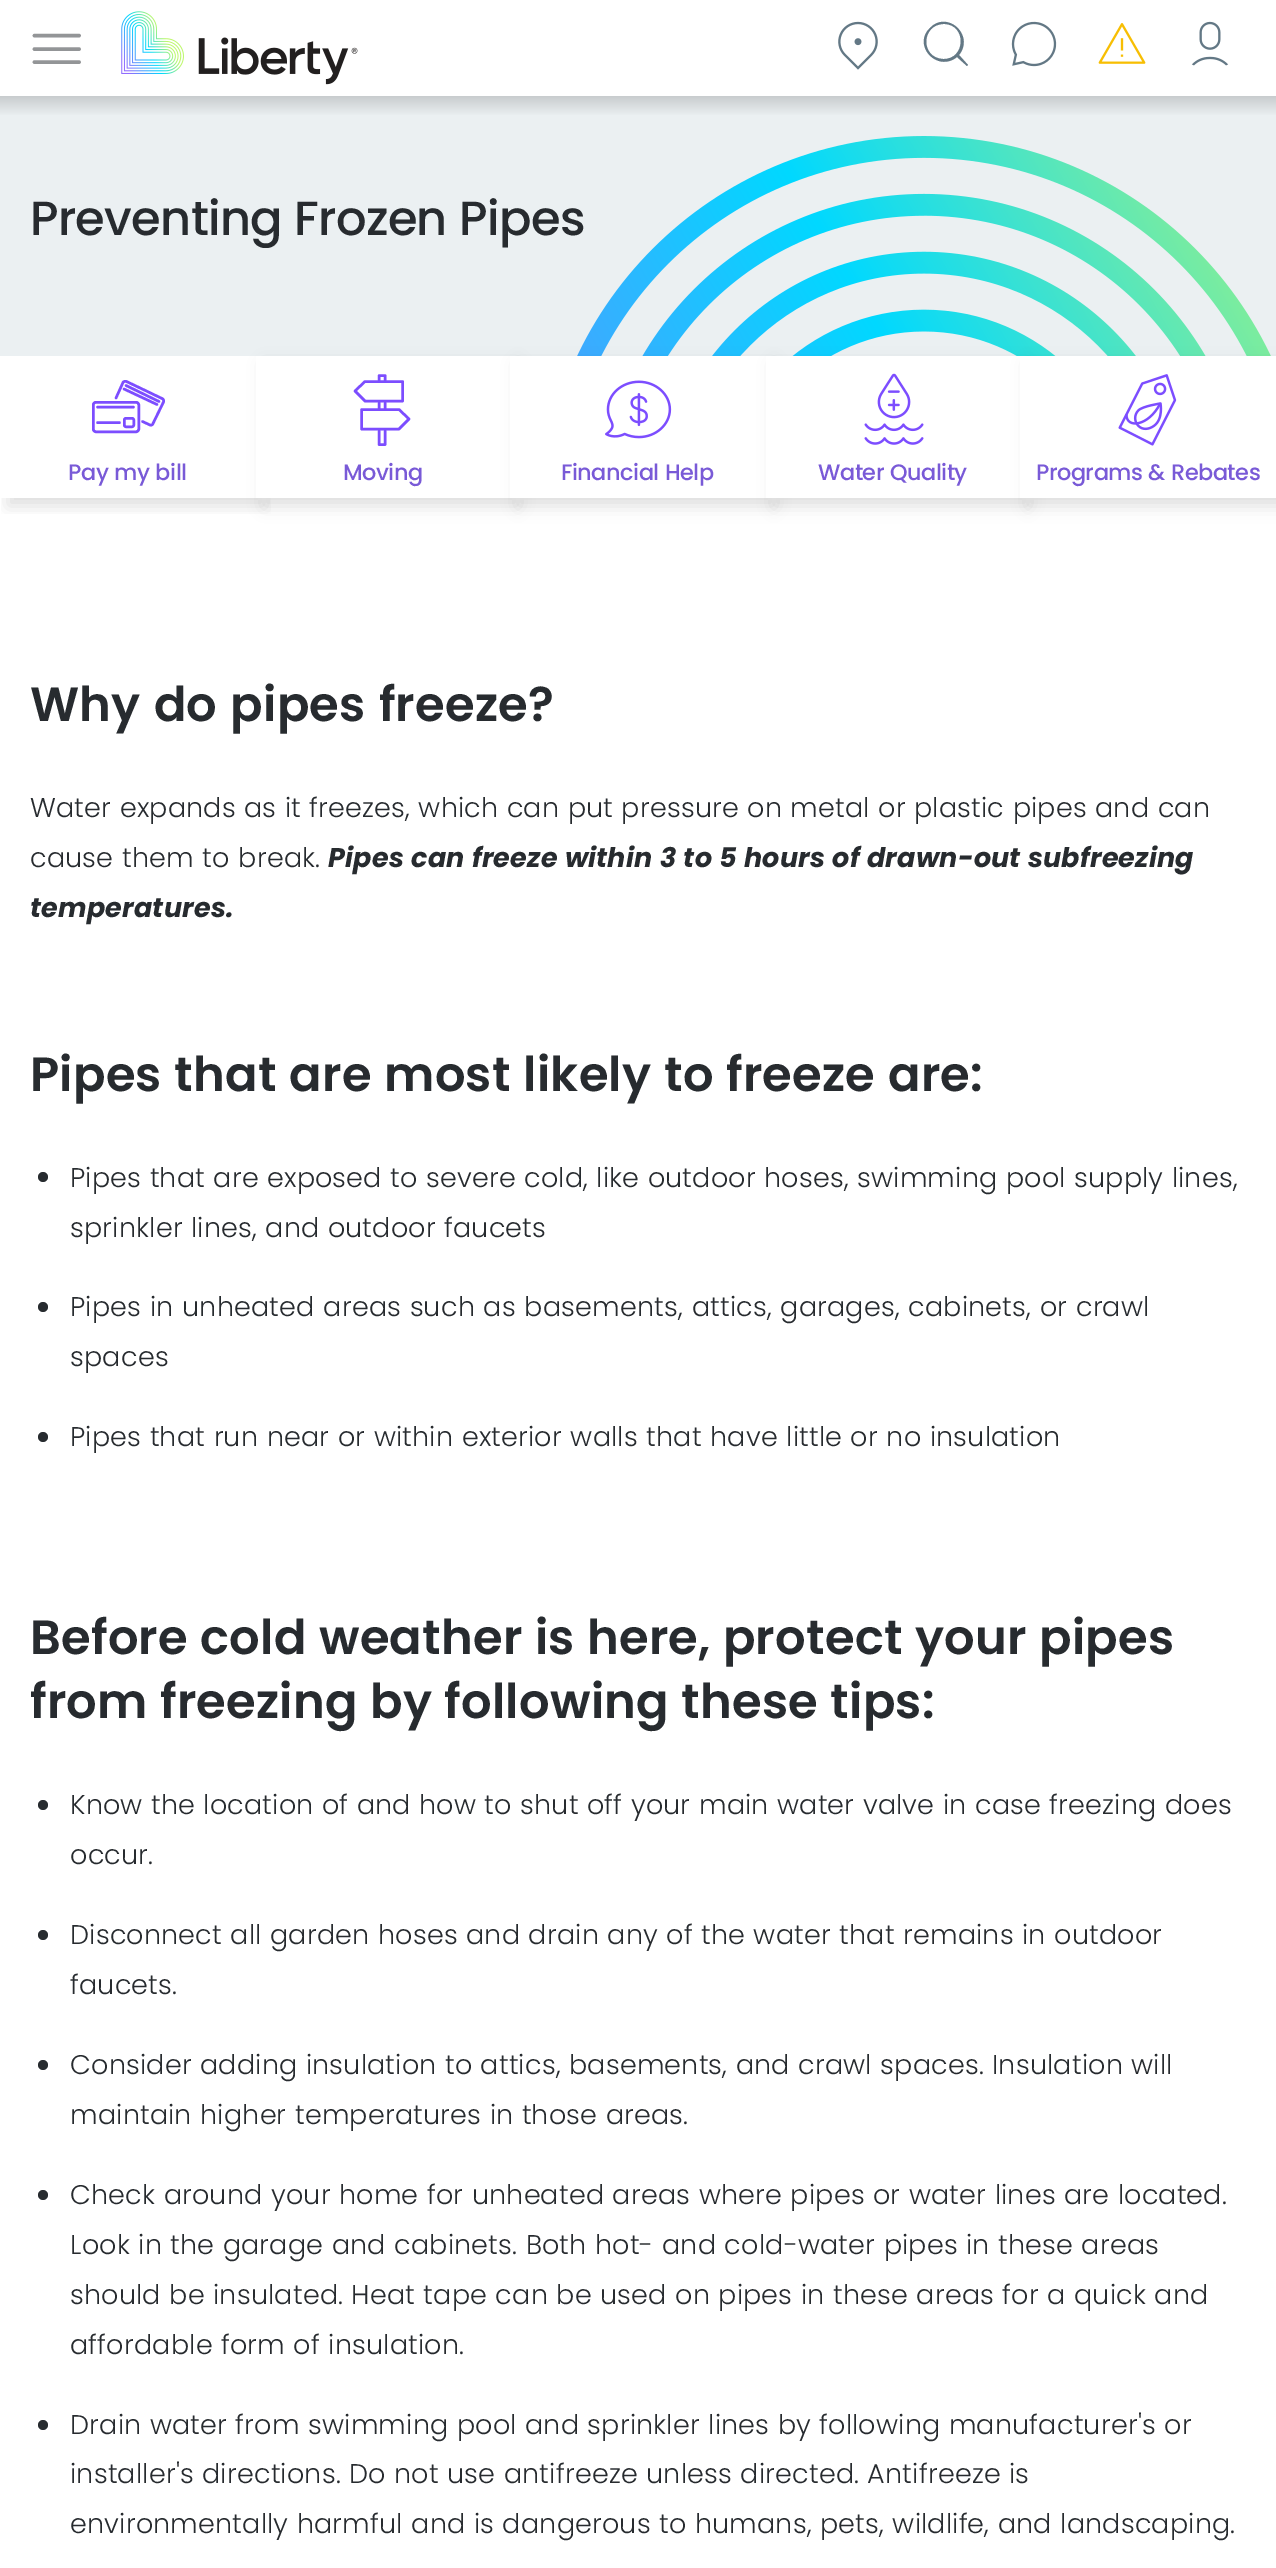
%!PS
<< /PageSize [1276 2568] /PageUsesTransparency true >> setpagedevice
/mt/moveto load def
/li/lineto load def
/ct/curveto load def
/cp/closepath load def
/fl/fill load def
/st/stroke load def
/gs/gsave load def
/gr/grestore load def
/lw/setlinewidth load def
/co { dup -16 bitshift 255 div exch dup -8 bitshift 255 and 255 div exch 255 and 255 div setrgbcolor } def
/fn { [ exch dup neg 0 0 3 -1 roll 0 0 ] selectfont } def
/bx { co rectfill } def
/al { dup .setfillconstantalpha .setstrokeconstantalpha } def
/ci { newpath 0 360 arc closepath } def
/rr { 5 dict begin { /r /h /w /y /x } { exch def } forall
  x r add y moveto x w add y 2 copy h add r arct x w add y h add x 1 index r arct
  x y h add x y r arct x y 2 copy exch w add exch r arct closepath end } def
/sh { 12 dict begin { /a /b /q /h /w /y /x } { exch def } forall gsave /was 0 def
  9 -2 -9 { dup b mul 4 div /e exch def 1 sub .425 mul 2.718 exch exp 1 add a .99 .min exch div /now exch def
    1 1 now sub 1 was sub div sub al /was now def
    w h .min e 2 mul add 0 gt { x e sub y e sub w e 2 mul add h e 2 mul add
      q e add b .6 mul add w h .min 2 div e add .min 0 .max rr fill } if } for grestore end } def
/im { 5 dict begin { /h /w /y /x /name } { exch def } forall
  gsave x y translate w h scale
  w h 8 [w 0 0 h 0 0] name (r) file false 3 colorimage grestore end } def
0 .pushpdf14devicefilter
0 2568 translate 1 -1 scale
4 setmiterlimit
0 0 1276 2568 16#FFFFFF bx
16#939597 co
3.6 lw
1 setlinecap
34.5 35.5 mt 79 35.5 li 34.5 49 mt 79 49 li 34.5 62 mt 79 62 li st
(media/1.raw) 121 11 237 74 im
(media/2.raw) 838 21 40 49 im
16#637885 co
957 57 mt 937 73 912 45 930 28 ct 947 10 975 35 959 55 ct 968 65 li 967 66 li cp 944 24 mt 921 24 920 58 943 59 ct 966 60 967 24 944 24 ct cp fl
(media/3.raw) 1011 21 46 46 im
(media/4.raw) 1098 23 48 41 im
(media/5.raw) 1191 21 38 45 im
gs 0 96 mt 1276 96 li 1276 116 li 0 116 li cp clip newpath
<< /ShadingType 2 /ColorSpace /DeviceRGB /Coords [638 96 638 116] /Extend [true true] /Function << /FunctionType 2 /Domain [0 1] /C0 [.784 .8 .808] /C1 [.922 .941 .949] /N 1 >> >> shfill gr
0 116 1276 240 16#EBF0F2 bx
(media/6.raw) 577 136 694 220 im
gs
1 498 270 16 rectclip
16#000000 co
8 364 256 142 0 8 .12 sh
gr
16#7C4DFF co
2.5 lw
0 setlinecap
93.25 402.25 45.5 29.5 2.75 rr st
1 setlinecap
1 setlinejoin
116 398 mt 123 382.5 li 123.5 381.5 125 381 126.5 381.5 ct 162 398.5 li 163.5 399 164 400.5 163.5 402 ct 153 423.5 li 152.5 425 151 425.5 150 425 ct 142.5 421.5 li 97.5 407 mt 133.5 407 li 97.5 422.5 mt 119.5 422.5 li 126 385.5 mt 159 401.5 li 124 389 mt 157 404.5 li st
0 setlinecap
0 setlinejoin
124.25 418.25 9.5 8.5 1.75 rr st
16#000000 co
264 364 254 142 0 8 .12 sh
256 356 254 142 16#FFFFFF bx
16#7C4DFF co
1 setlinecap
1 setlinejoin
385 409.5 mt 385 401 li 379 401 mt 379 409.5 li 379 429 mt 379 444.5 li 385 444.5 li 385 429 li 385 381.5 mt 385 375.5 li 379 375.5 li 379 381.5 li 365 401 mt 402.5 401 li 402.5 381.5 li 365 381.5 li 355 391 li cp 399 409.5 mt 361.5 409.5 li 361.5 429 li 399 429 li 409 419 li cp st
16#000000 co
518 364 256 142 0 8 .12 sh
510 356 256 142 16#FFFFFF bx
(media/7.raw) 605 380 67 59 im
16#000000 co
774 364 254 142 0 8 .12 sh
766 356 254 142 16#FFFFFF bx
(media/8.raw) 864 373 60 72 im
16#000000 co
1028 364 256 142 0 8 .12 sh
1020 356 256 142 16#FFFFFF bx
(media/9.raw) 1118 374 59 72 im
16#272B2F co
43 1177 5 ci fl
43 1307 5 ci fl
43 1437 5 ci fl
43 1805 5 ci fl
43 1935 5 ci fl
43 2065 5 ci fl
43 2195 5 ci fl
43 2425 5 ci fl
/Poppins-Medium 48 fn
30 235 mt .75 0 32 -.75 0 (Preventing Frozen Pipes) awidthshow
/Poppins-Medium 22.4 fn
16#795AD7 co
68 480 mt .75 0 32 -.5 0 (Pay my bill) awidthshow
343 480 mt -.5 0 (Moving) ashow
561 480 mt .75 0 32 -.5 0 (Financial Help) awidthshow
818 480 mt .75 0 32 -.5 0 (Water Quality) awidthshow
1036 480 mt .75 0 32 -.5 0 (Programs & Rebates) awidthshow
/Poppins-SemiBold 48 fn
16#272B2F co
30 721 mt 1.5 0 32 .2 0 (Why do pipes freeze?) awidthshow
/Poppins-Light 27 fn
30 817 mt .75 0 32 .2 0 (Water expands as it freezes, which can put pressure on metal or plastic pipes and can) awidthshow
30 867 mt 1 0 32 .2 0 (cause them to break.) awidthshow
/Poppins-BoldItalic 27 fn
328 867 mt .75 0 32 .2 0 (Pipes can freeze within 3 to 5 hours of drawn-out subfreezing) awidthshow
30 917 mt .2 0 (temperatures.) ashow
/Poppins-SemiBold 48 fn
30 1091 mt 1 0 32 .2 0 (Pipes that are most likely to freeze are:) awidthshow
/Poppins-Light 27 fn
70 1187 mt .75 0 32 .2 0 (Pipes that are exposed to severe cold, like outdoor hoses, swimming pool supply lines,) awidthshow
70 1237 mt .75 0 32 .2 0 (sprinkler lines, and outdoor faucets) awidthshow
70 1316 mt 1 0 32 .2 0 (Pipes in unheated areas such as basements, attics, garages, cabinets, or crawl) awidthshow
70 1366 mt .2 0 (spaces) ashow
70 1446 mt .9 0 32 .2 0 (Pipes that run near or within exterior walls that have little or no insulation) awidthshow
/Poppins-SemiBold 48 fn
30 1654 mt .75 0 32 .2 0 (Before cold weather is here, protect your pipes) awidthshow
30 1718 mt .75 0 32 .2 0 (from freezing by following these tips:) awidthshow
/Poppins-Light 27 fn
70 1814 mt .75 0 32 .2 0 (Know the location of and how to shut off your main water valve in case freezing does) awidthshow
70 1864 mt .2 0 (occur.) ashow
70 1944 mt .75 0 32 .2 0 (Disconnect all garden hoses and drain any of the water that remains in outdoor) awidthshow
70 1994 mt .2 0 (faucets.) ashow
70 2074 mt .75 0 32 .2 0 (Consider adding insulation to attics, basements, and crawl spaces. Insulation will) awidthshow
70 2124 mt .75 0 32 .2 0 (maintain higher temperatures in those areas.) awidthshow
70 2204 mt .75 0 32 .2 0 (Check around your home for unheated areas where pipes or water lines are located.) awidthshow
70 2254 mt .75 0 32 .2 0 (Look in the garage and cabinets. Both hot- and cold-water pipes in these areas) awidthshow
70 2304 mt .75 0 32 .2 0 (should be insulated. Heat tape can be used on pipes in these areas for a quick and) awidthshow
70 2354 mt .75 0 32 .2 0 (affordable form of insulation.) awidthshow
70 2434 mt .75 0 32 .2 0 (Drain water from swimming pool and sprinkler lines by following manufacturer's or) awidthshow
70 2483 mt .75 0 32 .2 0 (installer's directions. Do not use antifreeze unless directed. Antifreeze is) awidthshow
70 2533 mt .75 0 32 .2 0 (environmentally harmful and is dangerous to humans, pets, wildlife, and landscaping.) awidthshow
.poppdf14devicefilter showpage
